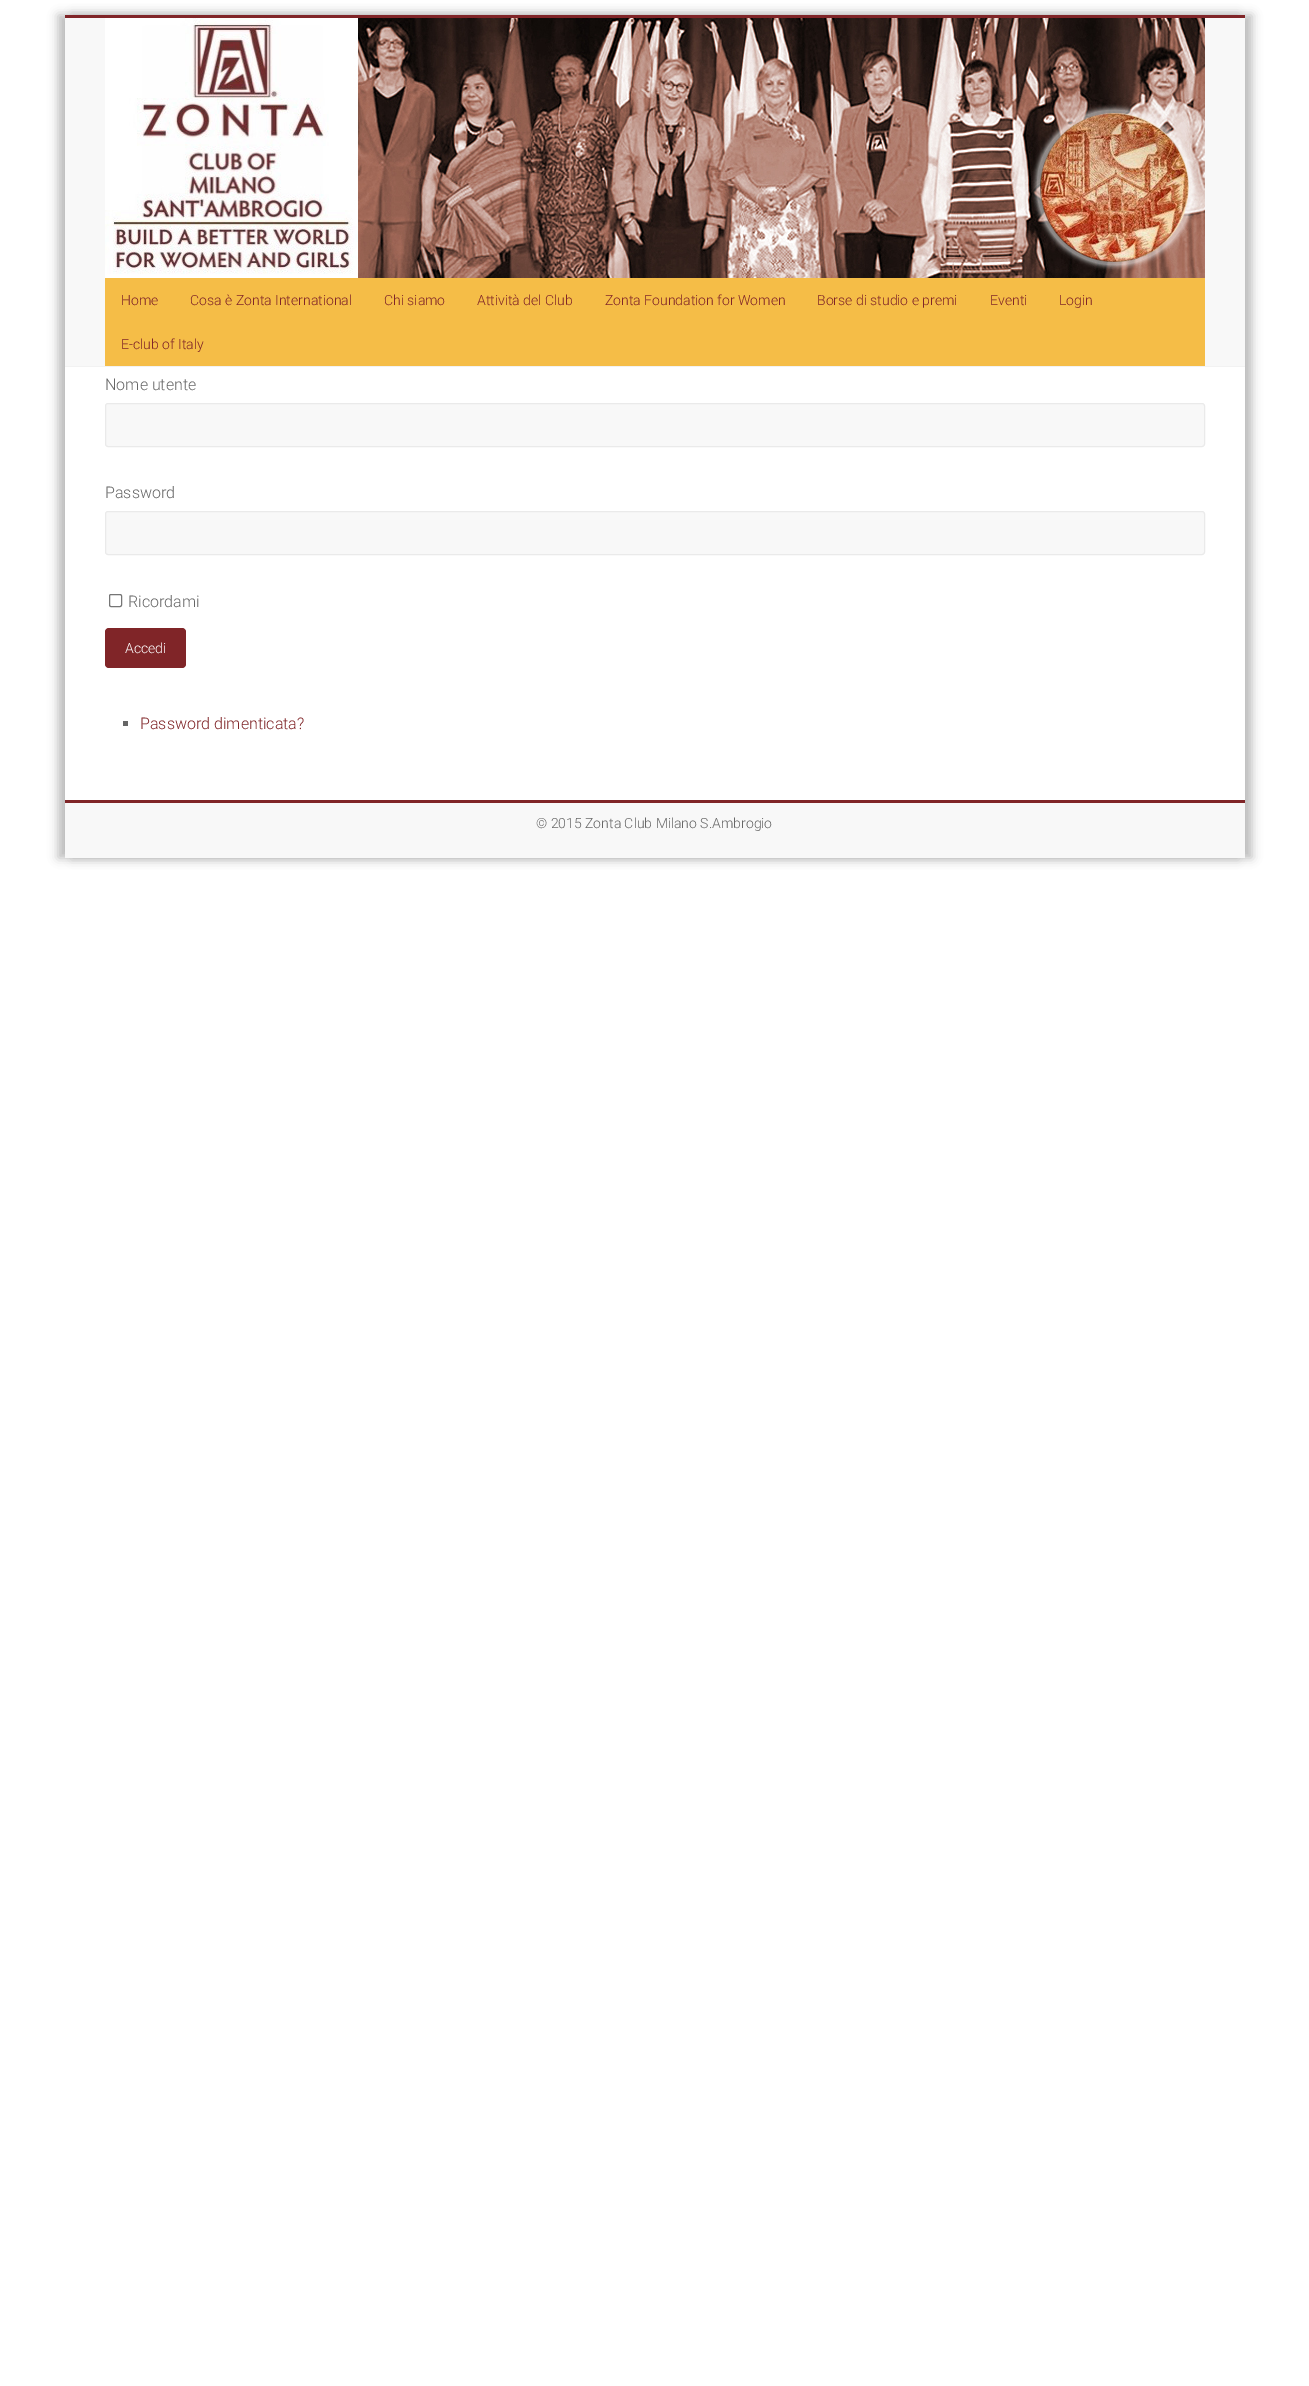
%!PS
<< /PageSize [1309 2386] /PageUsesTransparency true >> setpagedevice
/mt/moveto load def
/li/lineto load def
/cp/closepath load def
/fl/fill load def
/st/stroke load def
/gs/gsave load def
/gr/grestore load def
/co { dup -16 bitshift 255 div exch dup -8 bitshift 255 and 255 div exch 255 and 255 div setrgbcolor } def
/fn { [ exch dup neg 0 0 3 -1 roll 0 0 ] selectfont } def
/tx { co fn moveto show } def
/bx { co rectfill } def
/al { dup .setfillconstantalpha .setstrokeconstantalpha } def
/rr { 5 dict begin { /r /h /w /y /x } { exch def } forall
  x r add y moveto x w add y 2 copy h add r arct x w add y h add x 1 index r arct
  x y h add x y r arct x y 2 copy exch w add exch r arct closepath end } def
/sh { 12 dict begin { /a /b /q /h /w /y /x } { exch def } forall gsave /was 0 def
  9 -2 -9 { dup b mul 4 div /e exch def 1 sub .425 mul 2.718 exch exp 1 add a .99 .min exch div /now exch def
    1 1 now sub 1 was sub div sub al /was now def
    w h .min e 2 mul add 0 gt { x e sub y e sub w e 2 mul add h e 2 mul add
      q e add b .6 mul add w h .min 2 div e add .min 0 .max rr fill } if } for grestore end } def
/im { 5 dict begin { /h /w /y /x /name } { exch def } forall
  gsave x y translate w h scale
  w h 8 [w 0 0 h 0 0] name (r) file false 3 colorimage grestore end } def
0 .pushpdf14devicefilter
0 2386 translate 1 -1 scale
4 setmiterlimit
0 0 1309 2386 16#FFFFFF bx
gs
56 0 mt 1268 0 li 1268 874 li 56 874 li cp 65 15 mt 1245 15 li 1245 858 li 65 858 li cp eoclip newpath
16#BBBBBB co
72 15 1180 843 0 5 1 sh
gr
gs
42 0 mt 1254 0 li 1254 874 li 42 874 li cp 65 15 mt 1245 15 li 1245 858 li 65 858 li cp eoclip newpath
16#BBBBBB co
58 15 1180 843 0 5 1 sh
gr
65 15 1180 3 16#802528 bx
65 18 1180 348 16#F8F8F8 bx
65 366 1180 1 16#F2F2F2 bx
(media/1.raw) 105 18 1100 260 im
105 278 1100 88 16#F5BD47 bx
16#F8F8F8 co
105.5 403.5 1099 43 2.5 rr gs fl gr
16#EAEAEA co
st
16#F8F8F8 co
105.5 511.5 1099 43 2.5 rr gs fl gr
16#EAEAEA co
st
16#767676 co
109.5 594.5 12 12 1.5 rr st
16#802528 co
105 628 81 40 4 rr fl
123 721 5 5 16#666666 bx
65 803 1180 55 16#F8F8F8 bx
65 800 1180 3 16#802528 bx
(Home) 121 305 /Roboto-Light 14 16#802528 tx
(Cosa è Zonta International) 190 305 /Roboto-Light 14 16#802528 tx
(Chi siamo) 384 305 /Roboto-Light 14 16#802528 tx
(Attività del Club) 477 305 /Roboto-Light 14 16#802528 tx
(Zonta Foundation for Women) 605 305 /Roboto-Light 14 16#802528 tx
(Borse di studio e premi) 817 305 /Roboto-Light 14 16#802528 tx
(Eventi) 990 305 /Roboto-Light 14 16#802528 tx
(Login) 1059 305 /Roboto-Light 14 16#802528 tx
(E-club of Italy) 121 349 /Roboto-Light 14 16#802528 tx
(Nome utente) 105 390 /Roboto-Light 16 16#666666 tx
(Password) 105 498 /Roboto-Light 16 16#666666 tx
(Ricordami) 128 607 /Roboto-Light 16 16#666666 tx
(Accedi) 125 653 /Roboto-Light 14 16#FFFFFF tx
(Password dimenticata?) 140 729 /Roboto-Light 16 16#802528 tx
(© 2015 Zonta Club Milano S.Ambrogio) 536 828 /Roboto-Light 14 16#666666 tx
.poppdf14devicefilter showpage
